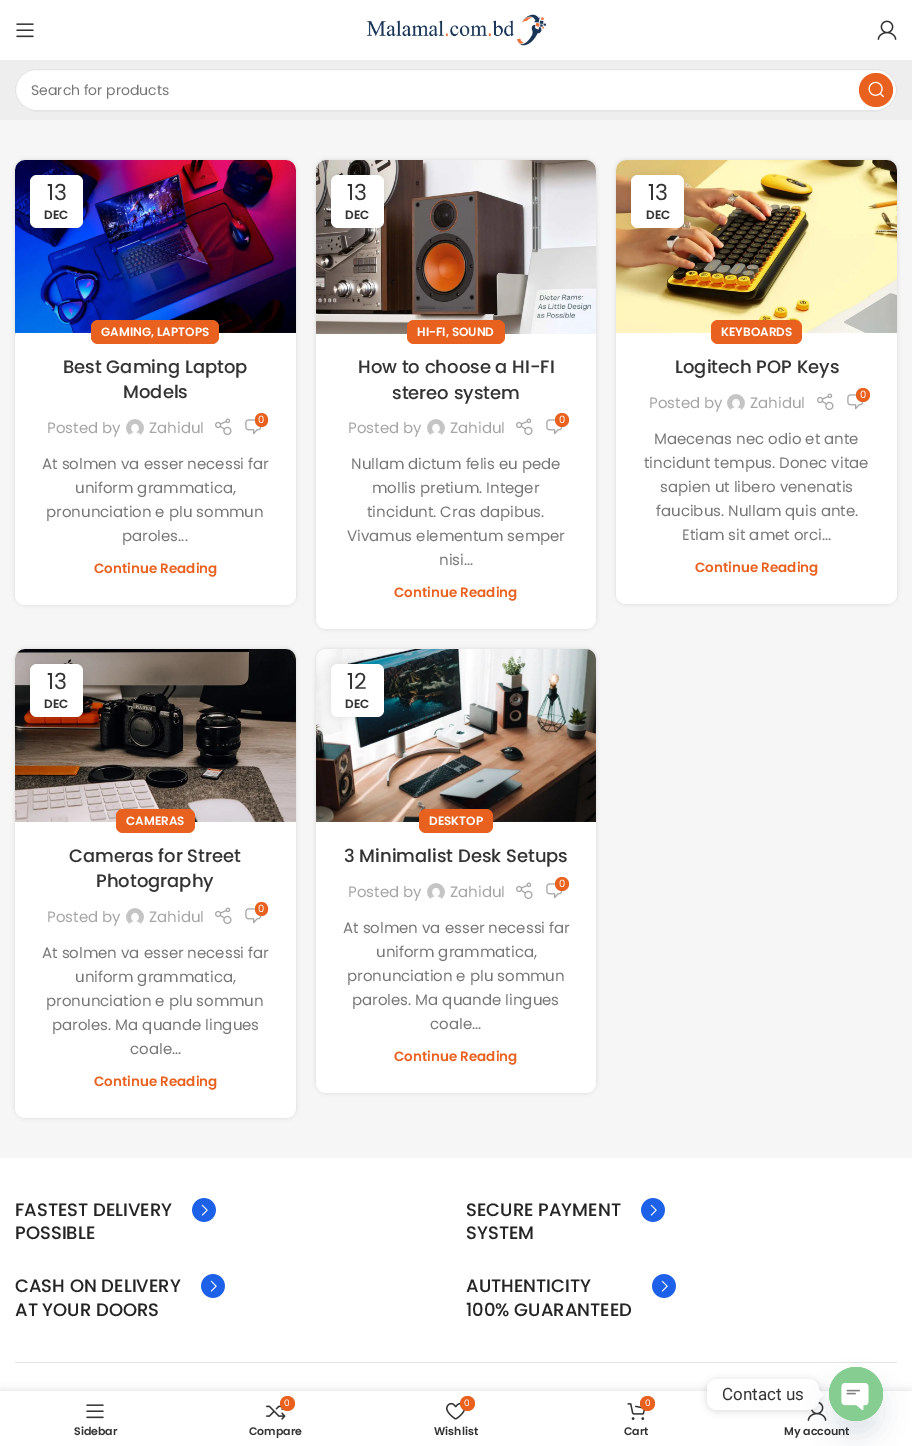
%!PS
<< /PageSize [912 1446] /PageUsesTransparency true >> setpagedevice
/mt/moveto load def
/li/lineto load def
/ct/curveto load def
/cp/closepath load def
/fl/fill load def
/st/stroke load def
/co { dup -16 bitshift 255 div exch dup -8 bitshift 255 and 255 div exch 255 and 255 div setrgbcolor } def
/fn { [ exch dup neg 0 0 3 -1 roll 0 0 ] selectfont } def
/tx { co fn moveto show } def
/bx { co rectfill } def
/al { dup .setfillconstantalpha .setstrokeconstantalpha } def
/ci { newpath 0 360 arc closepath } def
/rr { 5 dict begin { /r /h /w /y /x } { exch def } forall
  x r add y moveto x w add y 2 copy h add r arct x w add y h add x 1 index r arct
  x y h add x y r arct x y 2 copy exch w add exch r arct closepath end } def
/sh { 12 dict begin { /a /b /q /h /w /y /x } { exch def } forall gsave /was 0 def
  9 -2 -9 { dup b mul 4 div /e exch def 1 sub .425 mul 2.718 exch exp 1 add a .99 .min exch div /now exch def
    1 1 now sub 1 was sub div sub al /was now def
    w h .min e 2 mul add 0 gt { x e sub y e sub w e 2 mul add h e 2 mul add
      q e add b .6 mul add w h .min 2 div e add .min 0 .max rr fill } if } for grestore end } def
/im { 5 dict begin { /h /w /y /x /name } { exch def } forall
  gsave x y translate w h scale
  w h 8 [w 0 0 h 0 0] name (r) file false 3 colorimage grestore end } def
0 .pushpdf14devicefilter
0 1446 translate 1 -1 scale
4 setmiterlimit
0 0 912 1446 16#FFFFFF bx
(media/1.raw) 16 23 18 15 im
(media/2.raw) 366 14 180 32 im
(media/3.raw) 877 20 20 20 im
0 60 912 60 16#EEEEEE bx
16#FFFFFF co
15 69 882 42 21 rr fl
0.1 al
16#000000 co
15.5 69.5 881 41 20.5 rr st
1 al
16#E9611E co
876 90 17 ci fl
(media/4.raw) 868 81 16 17 im
0 120 912 1038 16#F6F6F6 bx
16#000000 co
15 160 281 445 10 2 .12 sh
(media/5.raw) 15 160 281 173 im
30 175 53 53 7 4.5 .1 sh
16#FFFFFF co
30 175 53 53 7 rr fl
15 333 mt 296 333 li 296 595 li 296 600.5 291.5 605 286 605 ct 25 605 li 19.5 605 15 600.5 15 595 ct cp fl
16#E9611E co
91 320 128 24 7 rr fl
(media/6.raw) 126 419 18 16 im
(media/7.raw) 215 418 17 17 im
(media/8.raw) 245 419 17 16 im
255 413 13 14 6.5 rr fl
16#000000 co
316 160 280 469 10 2 .12 sh
(media/9.raw) 316 160 280 174 im
331 175 53 53 7 4.5 .1 sh
16#FFFFFF co
331 175 53 53 7 rr fl
316 334 mt 596 334 li 596 619 li 596 624.5 591.5 629 586 629 ct 326 629 li 320.5 629 316 624.5 316 619 ct cp fl
16#E9611E co
407 320 98 24 7 rr fl
(media/6.raw) 427 419 18 16 im
(media/7.raw) 516 418 17 17 im
(media/8.raw) 546 419 17 16 im
562 420 7 ci fl
16#000000 co
616 160 281 444 10 2 .12 sh
(media/10.raw) 616 160 281 173 im
631 175 53 53 7 4.5 .1 sh
16#FFFFFF co
631 175 53 53 7 rr fl
616 333 mt 897 333 li 897 594 li 897 599.5 892.5 604 887 604 ct 626 604 li 620.5 604 616 599.5 616 594 ct cp fl
16#E9611E co
711 320 91 24 7 rr fl
(media/6.raw) 727 394 18 16 im
(media/7.raw) 817 393 17 17 im
(media/8.raw) 847 394 17 16 im
863 395 7 ci fl
16#000000 co
15 649 281 469 10 2 .12 sh
(media/11.raw) 15 649 281 173 im
30 664 53 53 7 4.5 .1 sh
16#FFFFFF co
30 664 53 53 7 rr fl
15 822 mt 296 822 li 296 1108 li 296 1113.5 291.5 1118 286 1118 ct 25 1118 li 19.5 1118 15 1113.5 15 1108 ct cp fl
16#E9611E co
116 809 79 24 7 rr fl
(media/6.raw) 126 908 18 16 im
(media/7.raw) 215 907 17 17 im
(media/8.raw) 245 908 17 16 im
255 902 13 14 6.5 rr fl
16#000000 co
316 649 280 444 10 2 .12 sh
(media/12.raw) 316 649 280 173 im
331 664 53 53 7 4.5 .1 sh
16#FFFFFF co
331 664 53 53 7 rr fl
316 822 mt 596 822 li 596 1083 li 596 1088.5 591.5 1093 586 1093 ct 326 1093 li 320.5 1093 316 1088.5 316 1083 ct cp fl
16#E9611E co
419 809 74 24 7 rr fl
(media/6.raw) 427 883 18 16 im
(media/7.raw) 516 882 17 17 im
(media/8.raw) 546 883 17 16 im
562 884 7 ci fl
15 1362 882 1 16#E4E4E4 bx
(media/13.raw) 192 1198 24 24 im
(media/13.raw) 641 1198 24 24 im
(media/13.raw) 201 1274 24 24 im
(media/13.raw) 652 1274 24 24 im
16#000000 co
0 1391 912 55 0 4.5 .12 sh
0 1391 912 55 16#FFFFFF bx
(media/3.raw) 807 1401 20 20 im
16#000000 co
707 1380 112 31 10 4 .15 sh
16#FFFFFF co
707 1379 112 31 10 rr fl
819 1399.5 mt 819 1389.5 li 824 1394.5 li cp fl
16#49687E co
829 1383 54 54 27 12 .16 sh
(media/14.raw) 829 1367 54 54 im
(media/1.raw) 86 1404 18 15 im
(media/15.raw) 266 1405 20 15 im
16#E9611E co
287.5 1403.5 7.5 ci fl
(media/16.raw) 446 1402 20 18 im
467.5 1403.5 7.5 ci fl
(media/17.raw) 627 1403 19 17 im
647.5 1403.5 7.5 ci fl
(Search for products) 31 95 /Poppins-Regular 14 16#777777 tx
(13) 47 200 /Poppins-Regular 22 16#333333 tx
(DEC) 44 219 /Poppins-SemiBold 12 16#333333 tx
(GAMING, LAPTOPS) 101 336 /Poppins-SemiBold 12 16#FFFFFF tx
(Best Gaming Laptop) 63 373 /Poppins-Medium 18 16#333333 tx
(Models) 123 398 /Poppins-Medium 18 16#333333 tx
(Posted by) 47 433 /Poppins-Regular 15 16#A5A5A5 tx
(Zahidul) 149 433 /Poppins-Regular 15 16#A5A5A5 tx
(0) 258 423 /Poppins-Regular 10 16#FFFFFF tx
(At solmen va esser necessi far) 42 469 /Poppins-Regular 15 16#777777 tx
(uniform grammatica,) 75 493 /Poppins-Regular 15 16#777777 tx
(pronunciation e plu sommun) 46 517 /Poppins-Regular 15 16#777777 tx
(paroles...) 122 541 /Poppins-Regular 15 16#777777 tx
(Continue Reading) 94 573 /Poppins-SemiBold 13.5 16#E9611E tx
(13) 347 200 /Poppins-Regular 22 16#333333 tx
(DEC) 345 219 /Poppins-SemiBold 12 16#333333 tx
(HI-FI, SOUND) 417 336 /Poppins-SemiBold 12 16#FFFFFF tx
(How to choose a HI-FI) 358 373 /Poppins-Medium 18 16#333333 tx
(stereo system) 392 399 /Poppins-Medium 18 16#333333 tx
(Posted by) 348 433 /Poppins-Regular 15 16#A5A5A5 tx
(Zahidul) 450 433 /Poppins-Regular 15 16#A5A5A5 tx
(0) 559 423 /Poppins-Regular 10 16#FFFFFF tx
(Nullam dictum felis eu pede) 351 469 /Poppins-Regular 15 16#777777 tx
(mollis pretium. Integer) 372 493 /Poppins-Regular 15 16#777777 tx
(tincidunt. Cras dapibus.) 367 517 /Poppins-Regular 15 16#777777 tx
(Vivamus elementum semper) 347 541 /Poppins-Regular 15 16#777777 tx
(nisi...) 439 565 /Poppins-Regular 15 16#777777 tx
(Continue Reading) 394 597 /Poppins-SemiBold 13.5 16#E9611E tx
(13) 648 200 /Poppins-Regular 22 16#333333 tx
(DEC) 646 219 /Poppins-SemiBold 12 16#333333 tx
(KEYBOARDS) 721 336 /Poppins-SemiBold 12 16#FFFFFF tx
(Logitech POP Keys) 675 373 /Poppins-Medium 18 16#333333 tx
(Posted by) 649 408 /Poppins-Regular 15 16#A5A5A5 tx
(Zahidul) 750 408 /Poppins-Regular 15 16#A5A5A5 tx
(0) 860 398 /Poppins-Regular 10 16#FFFFFF tx
(Maecenas nec odio et ante) 654 444 /Poppins-Regular 15 16#777777 tx
(tincidunt tempus. Donec vitae) 644 468 /Poppins-Regular 15 16#777777 tx
(sapien ut libero venenatis) 660 492 /Poppins-Regular 15 16#777777 tx
(faucibus. Nullam quis ante.) 656 516 /Poppins-Regular 15 16#777777 tx
(Etiam sit amet orci...) 682 540 /Poppins-Regular 15 16#777777 tx
(Continue Reading) 695 572 /Poppins-SemiBold 13.5 16#E9611E tx
(13) 47 689 /Poppins-Regular 22 16#333333 tx
(DEC) 44 708 /Poppins-SemiBold 12 16#333333 tx
(CAMERAS) 126 825 /Poppins-SemiBold 12 16#FFFFFF tx
(Cameras for Street) 69 862 /Poppins-Medium 18 16#333333 tx
(Photography) 96 887 /Poppins-Medium 18 16#333333 tx
(Posted by) 47 922 /Poppins-Regular 15 16#A5A5A5 tx
(Zahidul) 149 922 /Poppins-Regular 15 16#A5A5A5 tx
(0) 258 912 /Poppins-Regular 10 16#FFFFFF tx
(At solmen va esser necessi far) 42 958 /Poppins-Regular 15 16#777777 tx
(uniform grammatica,) 75 982 /Poppins-Regular 15 16#777777 tx
(pronunciation e plu sommun) 46 1006 /Poppins-Regular 15 16#777777 tx
(paroles. Ma quande lingues) 52 1030 /Poppins-Regular 15 16#777777 tx
(coale...) 130 1054 /Poppins-Regular 15 16#777777 tx
(Continue Reading) 94 1086 /Poppins-SemiBold 13.5 16#E9611E tx
(12) 347 689 /Poppins-Regular 22 16#333333 tx
(DEC) 345 708 /Poppins-SemiBold 12 16#333333 tx
(DESKTOP) 429 825 /Poppins-SemiBold 12 16#FFFFFF tx
(3 Minimalist Desk Setups) 344 862 /Poppins-Medium 18 16#333333 tx
(Posted by) 348 897 /Poppins-Regular 15 16#A5A5A5 tx
(Zahidul) 450 897 /Poppins-Regular 15 16#A5A5A5 tx
(0) 559 887 /Poppins-Regular 10 16#FFFFFF tx
(At solmen va esser necessi far) 343 933 /Poppins-Regular 15 16#777777 tx
(uniform grammatica,) 376 957 /Poppins-Regular 15 16#777777 tx
(pronunciation e plu sommun) 347 981 /Poppins-Regular 15 16#777777 tx
(paroles. Ma quande lingues) 352 1005 /Poppins-Regular 15 16#777777 tx
(coale...) 430 1029 /Poppins-Regular 15 16#777777 tx
(Continue Reading) 394 1061 /Poppins-SemiBold 13.5 16#E9611E tx
(FASTEST DELIVERY) 15 1216 /Poppins-Medium 18 16#242424 tx
(POSSIBLE) 15 1239 /Poppins-Medium 18 16#242424 tx
(SECURE PAYMENT) 466 1216 /Poppins-Medium 18 16#242424 tx
(SYSTEM) 466 1239 /Poppins-Medium 18 16#242424 tx
(CASH ON DELIVERY) 15 1292 /Poppins-Medium 18 16#242424 tx
(AT YOUR DOORS) 15 1316 /Poppins-Medium 18 16#242424 tx
(AUTHENTICITY) 466 1292 /Poppins-Medium 18 16#242424 tx
(100% GUARANTEED) 466 1316 /Poppins-Medium 18 16#242424 tx
(Contact us) 722 1400 /Roboto-Regular 17 16#333333 tx
(Sidebar) 74 1435 /Poppins-SemiBold 11 16#333333 tx
(0) 284 1406 /Poppins-Regular 9 16#FFFFFF tx
(Compare) 249 1435 /Poppins-SemiBold 11 16#333333 tx
(0) 464 1406 /Poppins-Regular 9 16#FFFFFF tx
(Wishlist) 434 1435 /Poppins-SemiBold 11 16#333333 tx
(0) 645 1406 /Poppins-Regular 9 16#FFFFFF tx
(Cart) 624 1435 /Poppins-SemiBold 11 16#333333 tx
(My account) 784 1435 /Poppins-SemiBold 11 16#333333 tx
.poppdf14devicefilter showpage
